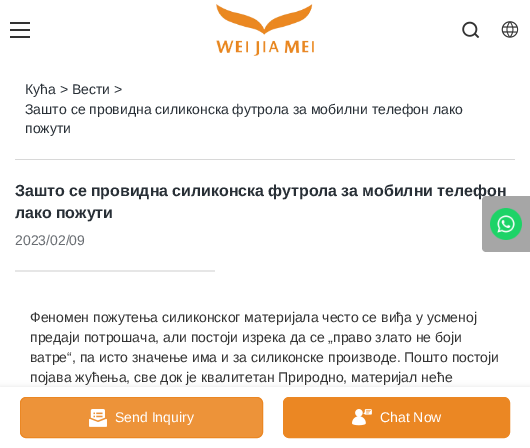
%!PS
<< /PageSize [530 448] /PageUsesTransparency true >> setpagedevice
/mt/moveto load def
/li/lineto load def
/ct/curveto load def
/cp/closepath load def
/fl/fill load def
/st/stroke load def
/gs/gsave load def
/gr/grestore load def
/co { dup -16 bitshift 255 div exch dup -8 bitshift 255 and 255 div exch 255 and 255 div setrgbcolor } def
/fn { [ exch dup neg 0 0 3 -1 roll 0 0 ] selectfont } def
/tx { co fn moveto show } def
/bx { co rectfill } def
/al { dup .setfillconstantalpha .setstrokeconstantalpha } def
/rr { 5 dict begin { /r /h /w /y /x } { exch def } forall
  x r add y moveto x w add y 2 copy h add r arct x w add y h add x 1 index r arct
  x y h add x y r arct x y 2 copy exch w add exch r arct closepath end } def
/sh { 12 dict begin { /a /b /q /h /w /y /x } { exch def } forall gsave /was 0 def
  9 -2 -9 { dup b mul 4 div /e exch def 1 sub .425 mul 2.718 exch exp 1 add a .99 .min exch div /now exch def
    1 1 now sub 1 was sub div sub al /was now def
    w h .min e 2 mul add 0 gt { x e sub y e sub w e 2 mul add h e 2 mul add
      q e add b .6 mul add w h .min 2 div e add .min 0 .max rr fill } if } for grestore end } def
/im { 5 dict begin { /h /w /y /x /name } { exch def } forall
  gsave x y translate w h scale
  w h 8 [w 0 0 h 0 0] name (r) file false 3 colorimage grestore end } def
0 .pushpdf14devicefilter
0 448 translate 1 -1 scale
4 setmiterlimit
0 0 530 448 16#FFFFFF bx
10 22 20 2 16#333333 bx
10 29 20 2 16#333333 bx
10 36 20 2 16#333333 bx
(media/1.raw) 216 4 98 52 im
(media/2.raw) 462 21 18 17 im
(media/3.raw) 501 21 18 17 im
15 159 500 1 16#D8D8D8 bx
15 270 200 2 16#E6E6E6 bx
16#000000 co
0 387 530 61 0 3 .1 sh
0 387 530 61 16#FFFFFF bx
16#EB8723 co
20.5 397.5 242 40 5.5 rr gs fl gr
st
16#ED9339 co
21 398 241 39 6 rr fl
(media/5.raw) 89 409 18 18 im
16#EB8723 co
283.5 397.5 226 40 5.5 rr gs fl gr
st
(media/6.raw) 352 409 20 17 im
(Кућа > Вести >) 25 94 /LiberationSans-Regular 14 16#282F36 tx
(Зашто се провидна силиконска футрола за мобилни телефон лако) 25 114 /LiberationSans-Regular 14 16#282F36 tx
(пожути) 25 133 /LiberationSans-Regular 14 16#282F36 tx
/LiberationSans-Bold 16 fn
15 196 mt -.5 0 32 (Зашто се провидна силиконска футрола за мобилни телефон) widthshow
15 218 mt -.5 0 32 (лако пожути) widthshow
(2023/02/09) 15 245 /LiberationSans-Regular 14 16#696D72 tx
(Феномен пожутења силиконског материјала често се виђа у усменој) 30 322 /LiberationSans-Regular 14 16#333333 tx
(предаји потрошача, али постоји изрека да се „право злато не боји) 30 342 /LiberationSans-Regular 14 16#333333 tx
(ватре“, па исто значење има и за силиконске производе. Пошто постоји) 30 362 /LiberationSans-Regular 14 16#333333 tx
(појава жућења, све док је квалитетан Природно, материјал неће) 30 382 /LiberationSans-Regular 14 16#333333 tx
0.35 al
16#000000 co
486 196 mt 530 196 li 530 252 li 486 252 li 484 252 482 250 482 248 ct 482 200 li 482 198 484 196 486 196 ct cp fl
1 al
(media/4.raw) 490 208 32 32 im
(Send Inquiry) 115 422 /LiberationSans-Regular 14 16#FFFFFF tx
(Chat Now) 380 422 /LiberationSans-Regular 14 16#FFFFFF tx
.poppdf14devicefilter showpage
